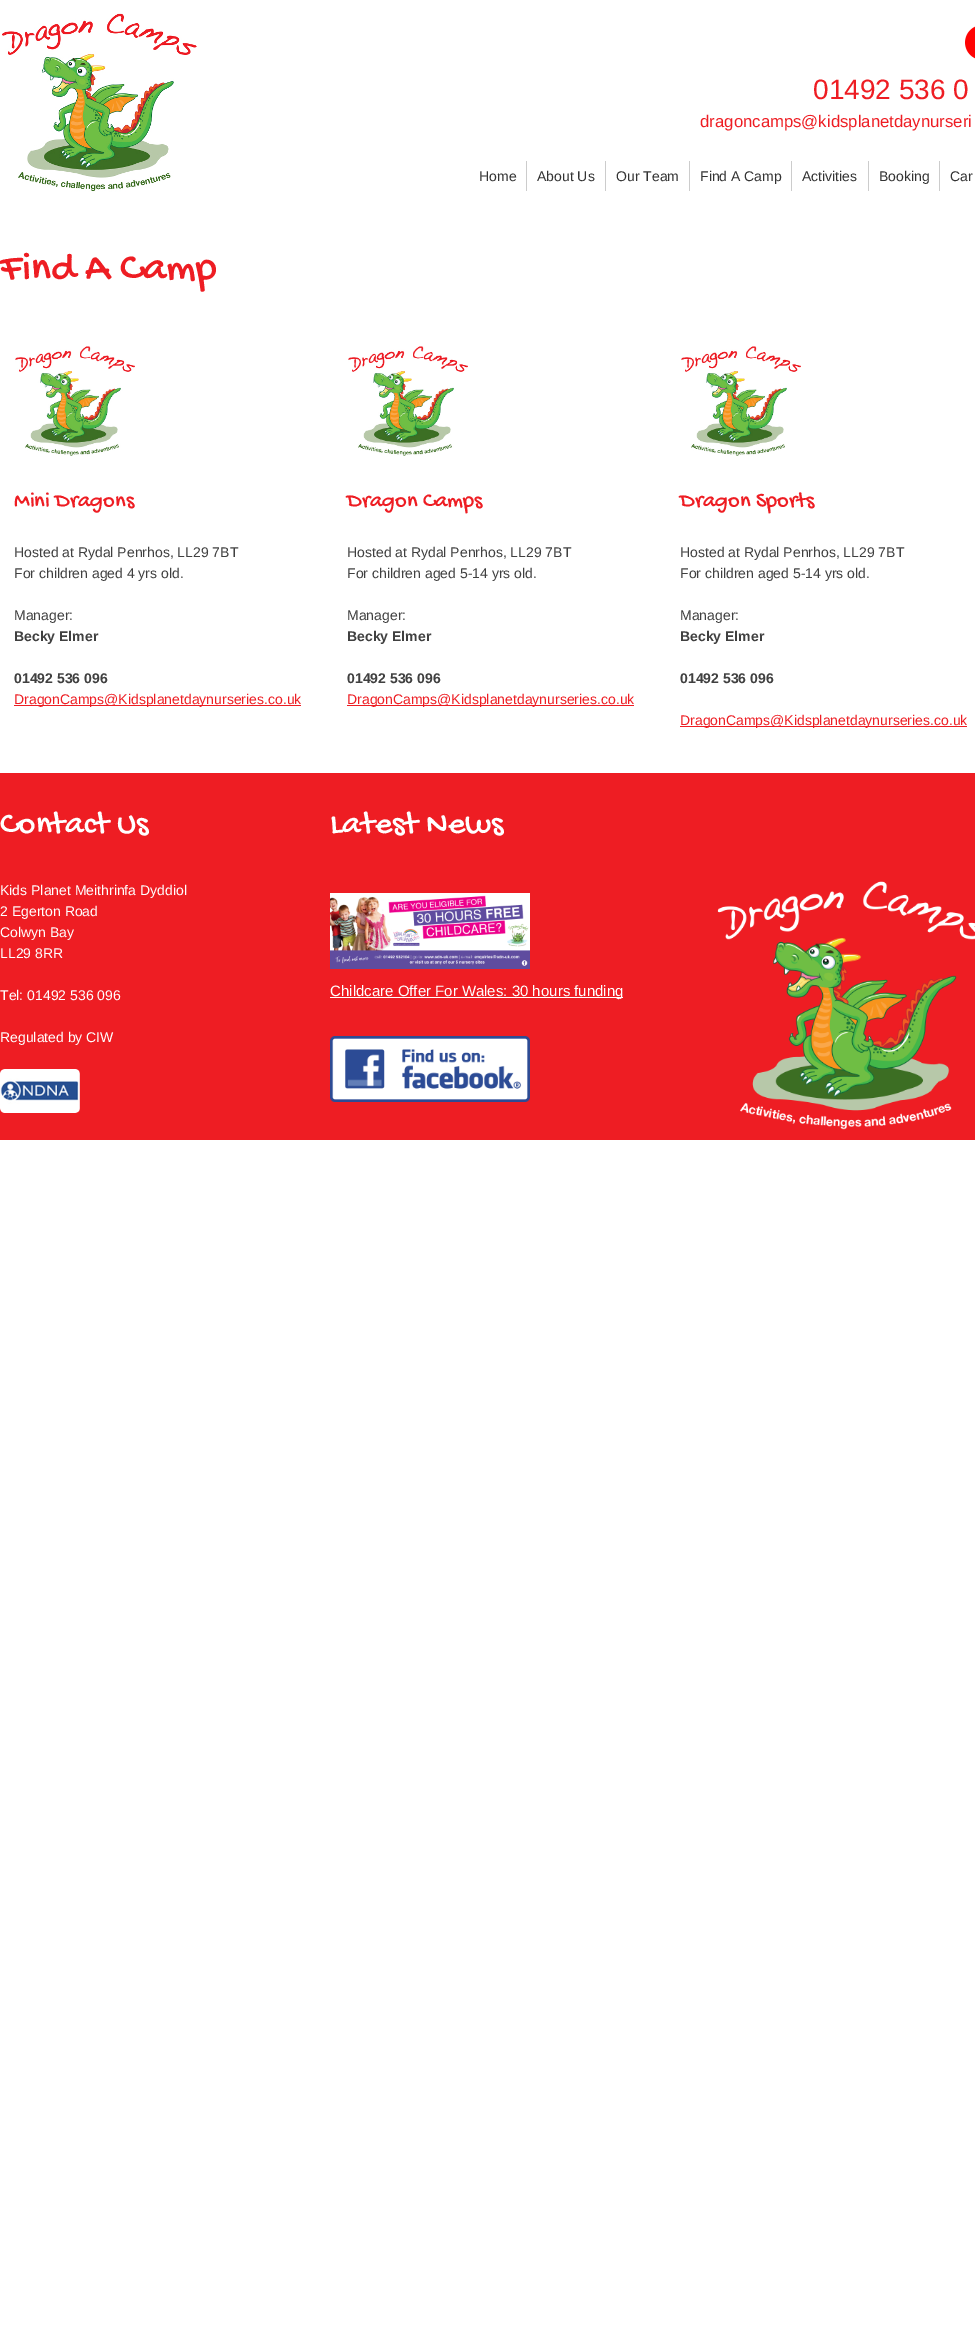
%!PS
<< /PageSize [975 2327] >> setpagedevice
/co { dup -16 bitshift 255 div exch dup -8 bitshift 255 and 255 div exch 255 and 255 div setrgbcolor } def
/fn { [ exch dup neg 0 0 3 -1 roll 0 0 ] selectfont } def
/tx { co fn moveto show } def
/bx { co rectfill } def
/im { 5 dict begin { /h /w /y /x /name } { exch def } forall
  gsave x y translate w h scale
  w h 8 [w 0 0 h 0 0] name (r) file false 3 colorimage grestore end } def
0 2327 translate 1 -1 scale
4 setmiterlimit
0 0 975 2327 16#FFFFFF bx
(media/1.raw) 2 13 195 179 im
(media/2.raw) 965 26 10 33 im
526 161 1 30 16#CCCCCC bx
605 161 1 30 16#CCCCCC bx
689 161 1 30 16#CCCCCC bx
791 161 1 30 16#CCCCCC bx
868 161 1 30 16#CCCCCC bx
939 161 1 30 16#CCCCCC bx
(media/3.raw) 15 346 120 110 im
14 705 287 1 16#EE1D23 bx
(media/4.raw) 348 346 120 110 im
347 705 287 1 16#EE1D23 bx
(media/5.raw) 681 346 120 110 im
680 726 287 1 16#EE1D23 bx
0 773 975 367 16#EE1D23 bx
(media/6.raw) 0 1069 80 44 im
(media/7.raw) 330 893 200 76 im
330 997 293 1 16#FFFFFF bx
(media/8.raw) 330 1036 200 66 im
(media/9.raw) 717 881 258 249 im
(01492 536 0) 813 99 /LiberationSans-Regular 28 16#EE1D23 tx
(dragoncamps@kidsplanetdaynurseri) 700 127 /LiberationSans-Regular 16.75 16#EE1D23 tx
(Home) 479 181 /LiberationSans-Regular 14 16#333333 tx
(About Us) 537 181 /LiberationSans-Regular 14 16#333333 tx
(Our Team) 616 181 /LiberationSans-Regular 14 16#333333 tx
(Find A Camp) 700 181 /LiberationSans-Regular 14 16#333333 tx
(Activities) 802 181 /LiberationSans-Regular 14 16#333333 tx
(Booking) 879 181 /LiberationSans-Regular 14 16#333333 tx
(Car) 950 181 /LiberationSans-Regular 14 16#333333 tx
(Find A Camp) 0 278 /GochiHand-Regular 42 16#EE1D23 tx
(Mini Dragons) 14 506 /GochiHand-Regular 22.5 16#EE1D23 tx
(Hosted at Rydal Penrhos, LL29 7BT) 14 557 /LiberationSans-Regular 14 16#404040 tx
(For children aged 4 yrs old.) 14 578 /LiberationSans-Regular 14 16#404040 tx
(Manager:) 14 620 /LiberationSans-Regular 14 16#404040 tx
(Becky Elmer) 14 641 /LiberationSans-Bold 14 16#404040 tx
(01492 536 096) 14 683 /LiberationSans-Bold 14 16#404040 tx
(DragonCamps@Kidsplanetdaynurseries.co.uk) 14 704 /LiberationSans-Regular 14 16#EE1D23 tx
(Dragon Camps) 347 506 /GochiHand-Regular 22.5 16#EE1D23 tx
(Hosted at Rydal Penrhos, LL29 7BT) 347 557 /LiberationSans-Regular 14 16#404040 tx
(For children aged 5-14 yrs old.) 347 578 /LiberationSans-Regular 14 16#404040 tx
(Manager:) 347 620 /LiberationSans-Regular 14 16#404040 tx
(Becky Elmer) 347 641 /LiberationSans-Bold 14 16#404040 tx
(01492 536 096) 347 683 /LiberationSans-Bold 14 16#404040 tx
(DragonCamps@Kidsplanetdaynurseries.co.uk) 347 704 /LiberationSans-Regular 14 16#EE1D23 tx
(Dragon Sports) 680 506 /GochiHand-Regular 22.5 16#EE1D23 tx
(Hosted at Rydal Penrhos, LL29 7BT) 680 557 /LiberationSans-Regular 14 16#404040 tx
(For children aged 5-14 yrs old.) 680 578 /LiberationSans-Regular 14 16#404040 tx
(Manager:) 680 620 /LiberationSans-Regular 14 16#404040 tx
(Becky Elmer) 680 641 /LiberationSans-Bold 14 16#404040 tx
(01492 536 096) 680 683 /LiberationSans-Bold 14 16#404040 tx
(DragonCamps@Kidsplanetdaynurseries.co.uk) 680 725 /LiberationSans-Regular 14 16#EE1D23 tx
(Contact Us) 0 832 /GochiHand-Regular 33.5 16#FFFFFF tx
(Kids Planet Meithrinfa Dyddiol) 0 895 /LiberationSans-Regular 14 16#FFFFFF tx
(2 Egerton Road) 0 916 /LiberationSans-Regular 14 16#FFFFFF tx
(Colwyn Bay) 0 937 /LiberationSans-Regular 14 16#FFFFFF tx
(LL29 8RR) 0 958 /LiberationSans-Regular 14 16#FFFFFF tx
(Tel: 01492 536 096) 0 1000 /LiberationSans-Regular 14 16#FFFFFF tx
(Regulated by CIW) 0 1042 /LiberationSans-Regular 14 16#FFFFFF tx
(Latest News) 330 832 /GochiHand-Regular 33.5 16#FFFFFF tx
(Childcare Offer For Wales: 30 hours funding) 330 996 /LiberationSans-Regular 15 16#FFFFFF tx
showpage
